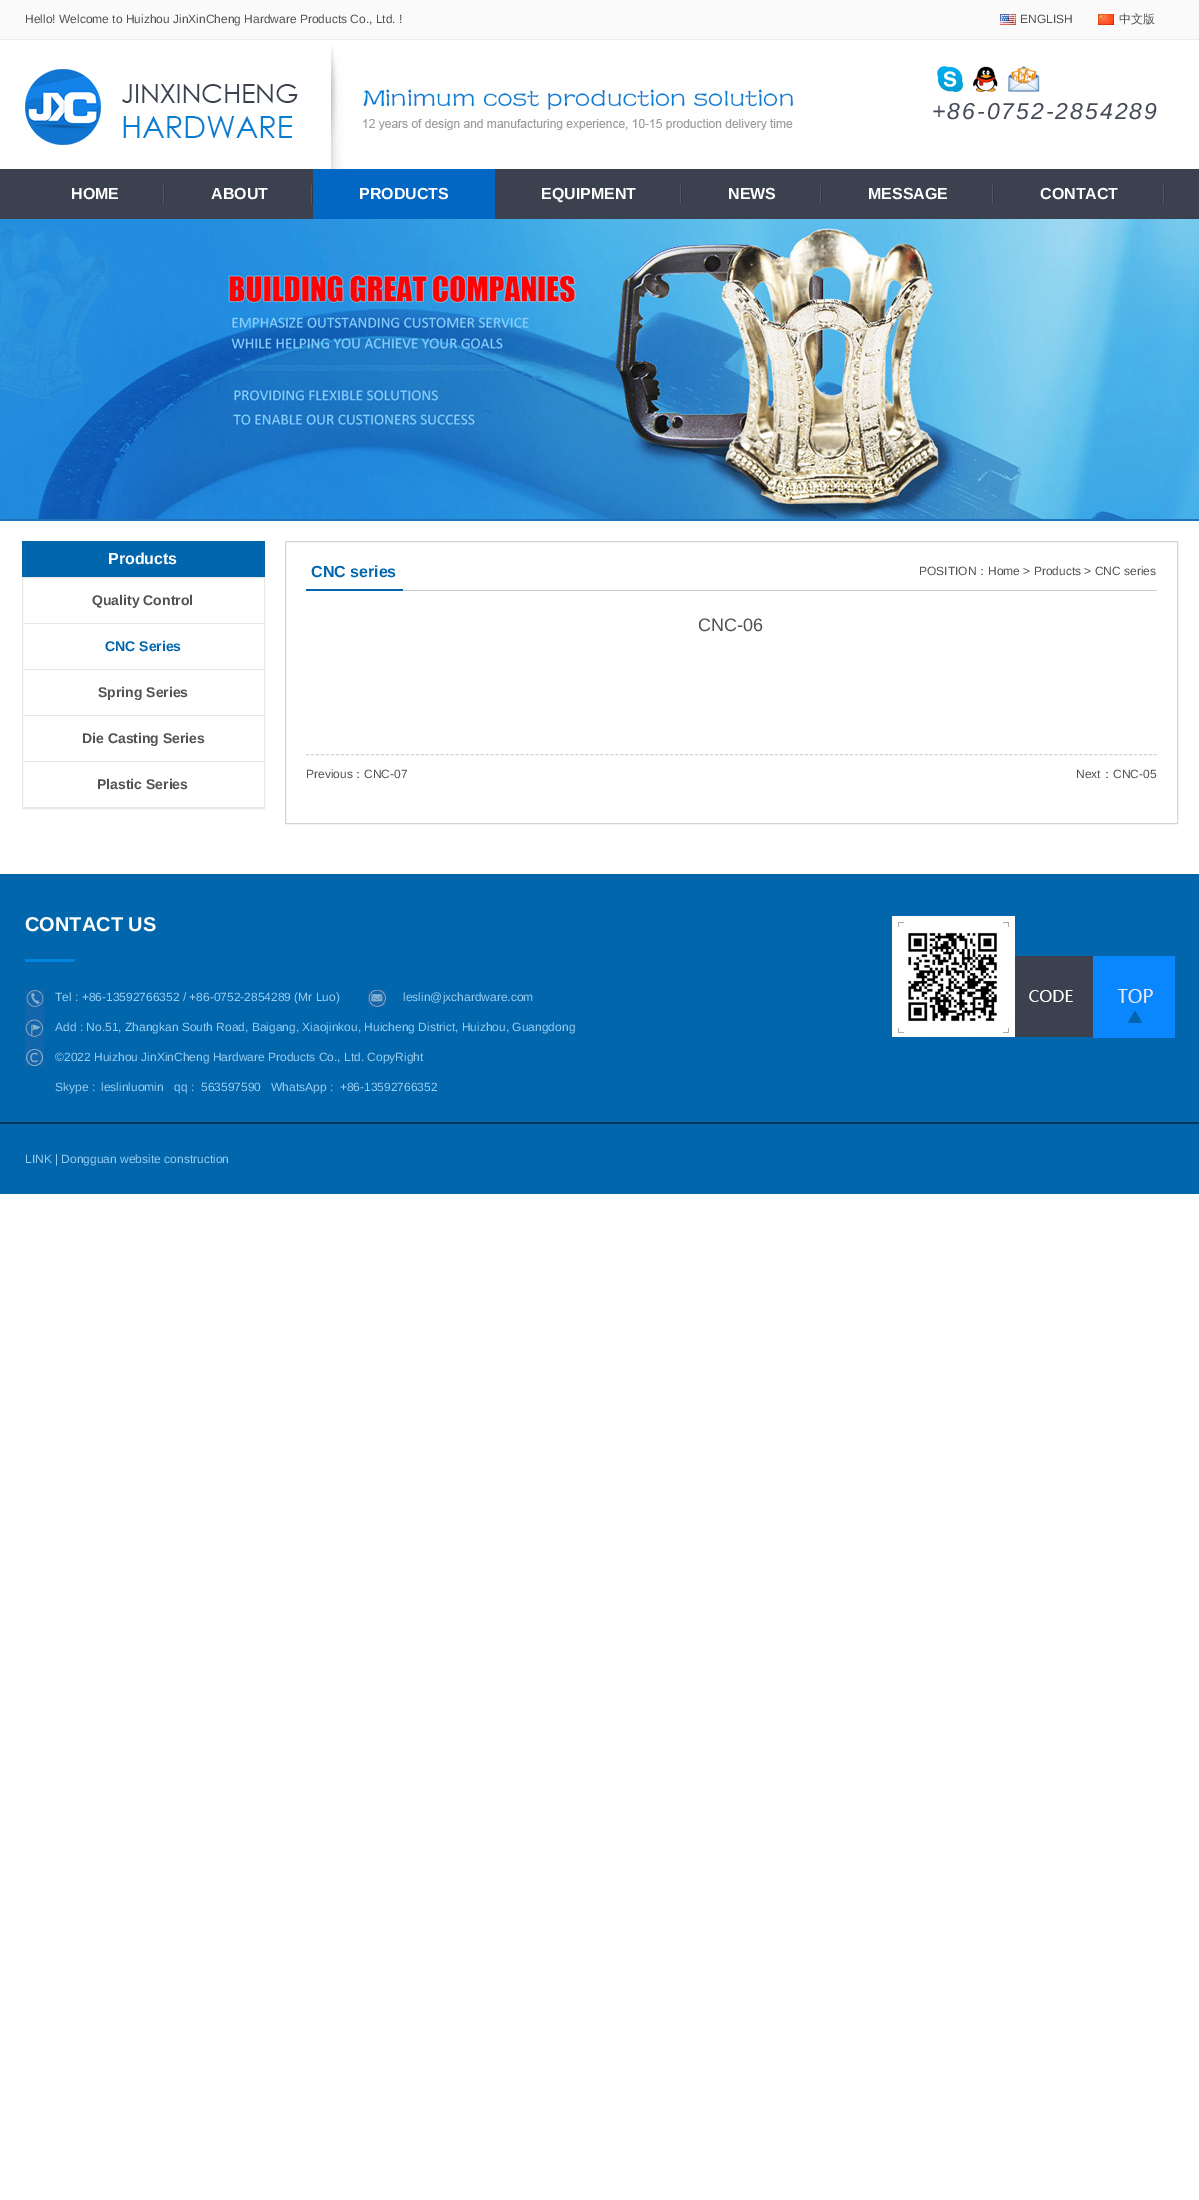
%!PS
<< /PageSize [1199 2200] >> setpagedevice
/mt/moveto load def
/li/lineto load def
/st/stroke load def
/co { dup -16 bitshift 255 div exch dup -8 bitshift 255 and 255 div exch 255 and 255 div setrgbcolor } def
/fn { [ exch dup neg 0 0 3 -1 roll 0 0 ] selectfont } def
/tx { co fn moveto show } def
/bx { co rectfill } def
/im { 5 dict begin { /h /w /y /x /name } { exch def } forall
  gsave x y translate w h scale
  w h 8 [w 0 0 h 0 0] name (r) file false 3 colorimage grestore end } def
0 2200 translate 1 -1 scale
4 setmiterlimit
0 0 1199 2200 16#FFFFFF bx
0 0 1199 39 16#FAFAFA bx
0 39 1199 1 16#EDEDED bx
(media/1.raw) 1000 14 114 11 im
(media/2.raw) 25 46 768 123 im
(media/3.raw) 937 66 26 26 im
(media/4.raw) 973 66 25 26 im
(media/5.raw) 1008 66 32 26 im
0 169 1199 50 16#3B414F bx
(media/6.raw) 163 185 2 19 im
(media/6.raw) 311 185 2 19 im
313 169 182 50 16#0266C3 bx
(media/6.raw) 680 185 2 19 im
(media/6.raw) 820 185 2 19 im
(media/6.raw) 992 185 2 19 im
(media/6.raw) 1163 185 2 19 im
0 519 1199 2 16#1E74BC bx
(media/7.raw) 0 219 1199 300 im
22 541 243 36 16#0166AC bx
16#E8E8E8 co
22.5 577.5 242 231 rectstroke
23 623 241 1 16#E8E8E8 bx
23 669 241 1 16#E8E8E8 bx
23 715 241 1 16#E8E8E8 bx
23 761 241 1 16#E8E8E8 bx
23 807 241 1 16#E8E8E8 bx
16#D5D5D5 co
285.5 541.5 892 282 rectstroke
403 590 754 1 16#CCCCCC bx
306 589 97 2 16#0166AC bx
16#D3D3D3 co
[3 1.99] 0 setdash
306 754.5 mt 1157 754.5 li st
0 874 1199 320 16#0166AC bx
25 959 50 3 16#0184DF bx
(media/8.raw) 25 990 361 76 im
(media/9.raw) 892 914 283 124 im
0 1122 1199 2 16#01385F bx
(Hello! Welcome to Huizhou JinXinCheng Hardware Products Co., Ltd. !) 25 23 /LiberationSans-Regular 12 16#525252 tx
(ENGLISH) 1020 23 /LiberationSans-Regular 12 16#525252 tx
(中文版) 1119 23 /WenQuanYiZenHei-Medium 12 16#525252 tx
/LiberationSans-Italic 23 fn
16#464A58 co
932 119 mt 2 0 (+86-0752-2854289) ashow
(HOME) 71 199 /LiberationSans-Bold 16 16#FFFFFF tx
(ABOUT) 211 199 /LiberationSans-Bold 16 16#FFFFFF tx
(PRODUCTS) 359 199 /LiberationSans-Bold 16 16#FFFFFF tx
(EQUIPMENT) 541 199 /LiberationSans-Bold 16 16#FFFFFF tx
(NEWS) 728 199 /LiberationSans-Bold 16 16#FFFFFF tx
(MESSAGE) 868 199 /LiberationSans-Bold 16 16#FFFFFF tx
(CONTACT) 1040 199 /LiberationSans-Bold 16 16#FFFFFF tx
(Products) 108 564 /LiberationSans-Bold 16 16#FFFFFF tx
(Quality Control) 92 605 /LiberationSans-Bold 14 16#525252 tx
(CNC Series) 105 651 /LiberationSans-Bold 14 16#0166AC tx
(Spring Series) 98 697 /LiberationSans-Bold 14 16#525252 tx
(Die Casting Series) 82 743 /LiberationSans-Bold 14 16#525252 tx
(Plastic Series) 97 789 /LiberationSans-Bold 14 16#525252 tx
(CNC series) 311 577 /LiberationSans-Bold 16 16#0166AC tx
(POSITION) 919 575 /LiberationSans-Regular 12 16#525252 tx
(：) 976 575 /WenQuanYiZenHei-Medium 12 16#525252 tx
(Home > Products > CNC series) 988 575 /LiberationSans-Regular 12 16#525252 tx
(CNC-06) 698 631 /LiberationSans-Regular 18 16#525252 tx
(Previous) 306 778 /LiberationSans-Regular 12 16#525252 tx
(：) 352 778 /WenQuanYiZenHei-Medium 12 16#525252 tx
(CNC-07) 364 778 /LiberationSans-Regular 12 16#525252 tx
(Next) 1076 778 /LiberationSans-Regular 12 16#525252 tx
(：) 1101 778 /WenQuanYiZenHei-Medium 12 16#525252 tx
(CNC-05) 1113 778 /LiberationSans-Regular 12 16#525252 tx
(CONTACT US) 25 931 /LiberationSans-Bold 20 16#FFFFFF tx
(Tel : +86-13592766352 / +86-0752-2854289 \(Mr Luo\)) 55 1001 /LiberationSans-Regular 12 16#97CEF4 tx
(leslin@jxchardware.com) 403 1001 /LiberationSans-Regular 12 16#97CEF4 tx
(Add : No.51, Zhangkan South Road, Baigang, Xiaojinkou, Huicheng District, Huizhou, Guangdong) 55 1031 /LiberationSans-Regular 12 16#97CEF4 tx
(©2022 Huizhou JinXinCheng Hardware Products Co., Ltd. CopyRight) 55 1061 /LiberationSans-Regular 12 16#97CEF4 tx
(Skype :) 55 1091 /LiberationSans-Regular 12 16#97CEF4 tx
(leslinluomin) 101 1091 /LiberationSans-Regular 12 16#97CEF4 tx
(qq :) 174 1091 /LiberationSans-Regular 12 16#97CEF4 tx
(563597590) 201 1091 /LiberationSans-Regular 12 16#97CEF4 tx
(WhatsApp :  +86-13592766352) 271 1091 /LiberationSans-Regular 12 16#97CEF4 tx
(LINK | Dongguan website construction) 25 1163 /LiberationSans-Regular 12 16#97CEF4 tx
showpage
